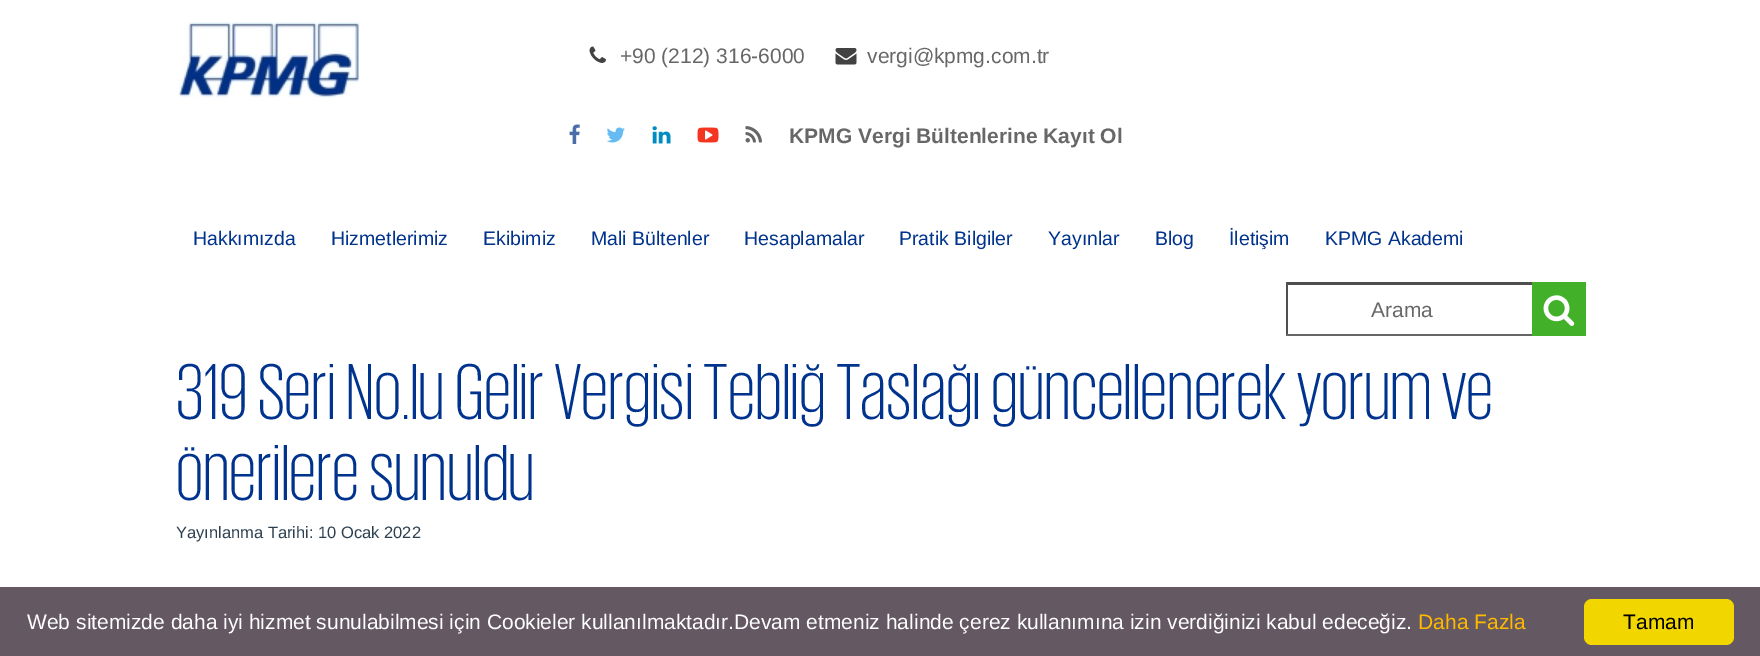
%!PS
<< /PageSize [1760 656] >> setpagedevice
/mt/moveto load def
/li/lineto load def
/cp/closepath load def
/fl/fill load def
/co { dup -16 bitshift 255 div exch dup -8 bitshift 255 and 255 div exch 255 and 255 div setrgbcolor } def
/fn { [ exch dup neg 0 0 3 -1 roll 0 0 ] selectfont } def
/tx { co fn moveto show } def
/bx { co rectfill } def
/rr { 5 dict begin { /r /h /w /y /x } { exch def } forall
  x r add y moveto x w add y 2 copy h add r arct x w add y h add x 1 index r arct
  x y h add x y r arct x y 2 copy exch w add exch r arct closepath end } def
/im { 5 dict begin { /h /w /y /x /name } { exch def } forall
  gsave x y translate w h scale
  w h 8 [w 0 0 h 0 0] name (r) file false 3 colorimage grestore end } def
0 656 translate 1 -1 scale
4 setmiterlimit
0 0 1760 656 16#FFFFFF bx
(media/1.raw) 178 22 182 76 im
(media/2.raw) 589 46 17 17 im
(media/3.raw) 835 48 22 17 im
(media/4.raw) 569 124 11 20 im
(media/5.raw) 606 127 19 16 im
(media/6.raw) 652 126 19 18 im
(media/7.raw) 697 127 22 16 im
(media/8.raw) 745 126 17 17 im
16#4F4F4F co
1286 282 mt 1586 282 li 1582 285 li 1288 285 li cp fl
16#666666 co
1586 336 mt 1286 336 li 1288 334 li 1582 334 li cp fl
16#4F4F4F co
1286 336 mt 1286 282 li 1288 285 li 1288 334 li cp fl
1532 282 54 54 16#43B02A bx
(media/9.raw) 1543 295 32 31 im
0 587 1760 69 16#645862 bx
16#F1D600 co
1584 599 150 46 8 rr fl
(+90 \(212\) 316-6000) 620 63 /LiberationSans-Regular 21 16#676767 tx
(vergi@kpmg.com.tr) 867 63 /LiberationSans-Regular 21 16#676767 tx
(KPMG Vergi Bültenlerine Kayıt Ol) 789 143 /LiberationSans-Bold 21 16#676767 tx
(Hakkımızda) 193 245 /LiberationSans-Regular 19.5 16#00338D tx
(Hizmetlerimiz) 331 245 /LiberationSans-Regular 19.5 16#00338D tx
(Ekibimiz) 483 245 /LiberationSans-Regular 19.5 16#00338D tx
(Mali Bültenler) 591 245 /LiberationSans-Regular 19.5 16#00338D tx
(Hesaplamalar) 744 245 /LiberationSans-Regular 19.5 16#00338D tx
(Pratik Bilgiler) 899 245 /LiberationSans-Regular 19.5 16#00338D tx
(Yayınlar) 1048 245 /LiberationSans-Regular 19.5 16#00338D tx
(Blog) 1155 245 /LiberationSans-Regular 19.5 16#00338D tx
(İletişim) 1229 245 /LiberationSans-Regular 19.5 16#00338D tx
(KPMG Akademi) 1325 245 /LiberationSans-Regular 19.5 16#00338D tx
(Arama) 1371 317 /LiberationSans-Regular 21 16#676767 tx
(319 Seri No.lu Gelir Vergisi Tebliğ Taslağı güncellenerek yorum ve) 176 419 /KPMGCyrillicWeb-Light 81 16#00338D tx
(önerilere sunuldu) 176 500 /KPMGCyrillicWeb-Light 81 16#00338D tx
(Yayınlanma Tarihi: 10 Ocak 2022) 176 538 /LiberationSans-Regular 16.5 16#2D4050 tx
(Web sitemizde daha iyi hizmet sunulabilmesi için Cookieler kullanılmaktadır.Devam etmeniz halinde çerez kullanımına izin verdiğinizi kabul edeceğiz.) 27 629 /LiberationSans-Regular 21 16#FFFFFF tx
(Daha Fazla) 1418 629 /LiberationSans-Regular 21 16#FFBA00 tx
(Tamam) 1623 629 /LiberationSans-Regular 21 16#000000 tx
showpage
